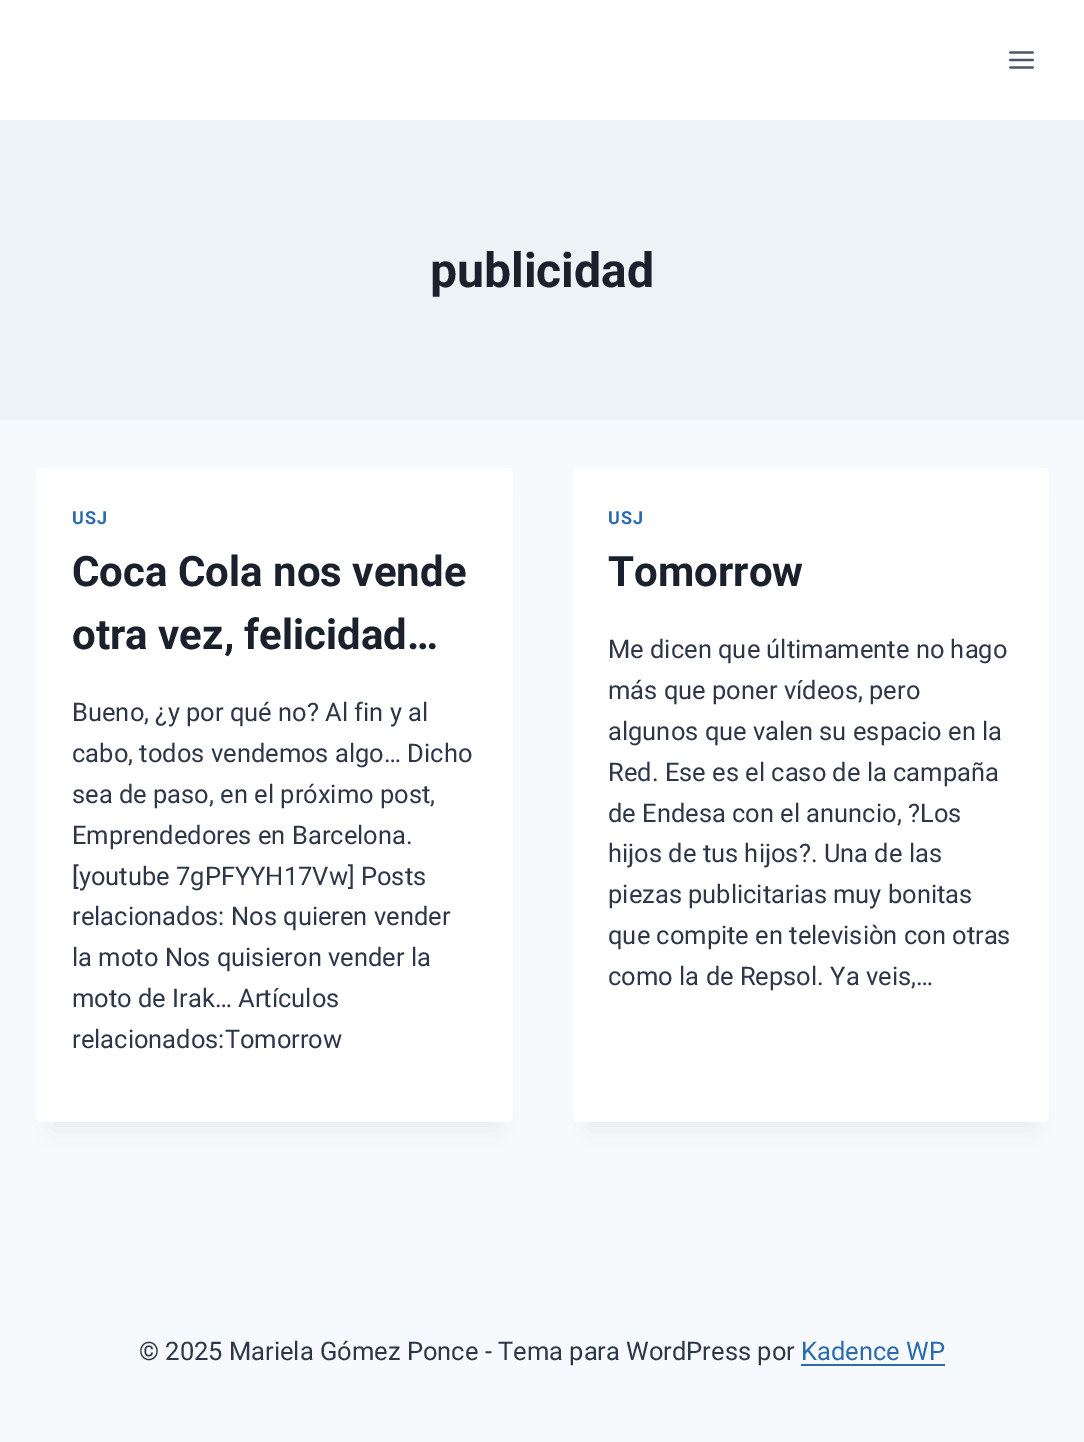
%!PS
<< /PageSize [1084 1442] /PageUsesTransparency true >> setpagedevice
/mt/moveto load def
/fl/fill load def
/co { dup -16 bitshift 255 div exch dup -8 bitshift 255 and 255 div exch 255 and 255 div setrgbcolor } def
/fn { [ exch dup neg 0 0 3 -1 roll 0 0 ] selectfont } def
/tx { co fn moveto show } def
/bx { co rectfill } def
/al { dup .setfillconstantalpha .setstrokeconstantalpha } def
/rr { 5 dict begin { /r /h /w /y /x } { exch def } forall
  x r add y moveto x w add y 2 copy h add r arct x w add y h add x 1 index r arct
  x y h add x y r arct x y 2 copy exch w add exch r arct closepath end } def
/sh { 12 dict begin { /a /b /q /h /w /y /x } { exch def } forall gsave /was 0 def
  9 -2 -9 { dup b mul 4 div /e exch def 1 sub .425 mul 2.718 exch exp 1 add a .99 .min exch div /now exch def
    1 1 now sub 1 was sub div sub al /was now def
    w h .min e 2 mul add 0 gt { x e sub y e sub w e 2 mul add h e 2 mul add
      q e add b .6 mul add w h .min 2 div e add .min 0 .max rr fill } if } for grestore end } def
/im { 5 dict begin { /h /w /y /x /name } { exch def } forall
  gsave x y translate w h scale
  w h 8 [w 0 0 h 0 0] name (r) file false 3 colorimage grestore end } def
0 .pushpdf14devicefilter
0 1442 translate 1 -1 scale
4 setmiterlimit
0 0 1084 1442 16#F7FAFC bx
0 0 1084 120 16#FFFFFF bx
(media/1.raw) 1009 51 25 18 im
0 120 1084 300 16#EDF2F7 bx
16#000000 co
51 506 447 624 0 11 .05 sh
16#FFFFFF co
36 468 477 654 6 rr fl
16#000000 co
588 506 446 624 0 11 .05 sh
16#FFFFFF co
573 468 476 654 6 rr fl
801 1364 144 2 16#2B6CB0 bx
(publicidad) 430 287 /Roboto-Bold 48 16#1A202C tx
/Roboto-Bold 18 fn
16#2B6CB0 co
72 524 mt 1 0 (USJ) ashow
(Coca Cola nos vende) 72 586 /Roboto-Bold 42 16#1A202C tx
(otra vez, felicidad…) 72 649 /Roboto-Bold 42 16#1A202C tx
(Bueno, ¿y por qué no? Al fin y al) 72 721 /Roboto-Regular 25.5 16#2D3748 tx
(cabo, todos vendemos algo… Dicho) 72 762 /Roboto-Regular 25.5 16#2D3748 tx
(sea de paso, en el próximo post,) 72 803 /Roboto-Regular 25.5 16#2D3748 tx
(Emprendedores en Barcelona.) 72 844 /Roboto-Regular 25.5 16#2D3748 tx
([youtube 7gPFYYH17Vw] Posts) 72 885 /Roboto-Regular 25.5 16#2D3748 tx
(relacionados: Nos quieren vender) 72 925 /Roboto-Regular 25.5 16#2D3748 tx
(la moto Nos quisieron vender la) 72 966 /Roboto-Regular 25.5 16#2D3748 tx
(moto de Irak… Artículos) 72 1007 /Roboto-Regular 25.5 16#2D3748 tx
(relacionados:Tomorrow) 72 1048 /Roboto-Regular 25.5 16#2D3748 tx
/Roboto-Bold 18 fn
16#2B6CB0 co
608 524 mt 1 0 (USJ) ashow
(Tomorrow) 608 586 /Roboto-Bold 42 16#1A202C tx
(Me dicen que últimamente no hago) 608 658 /Roboto-Regular 25.5 16#2D3748 tx
(más que poner vídeos, pero) 608 699 /Roboto-Regular 25.5 16#2D3748 tx
(algunos que valen su espacio en la) 608 740 /Roboto-Regular 25.5 16#2D3748 tx
(Red. Ese es el caso de la campaña) 608 781 /Roboto-Regular 25.5 16#2D3748 tx
(de Endesa con el anuncio, ?Los) 608 822 /Roboto-Regular 25.5 16#2D3748 tx
(hijos de tus hijos?. Una de las) 608 862 /Roboto-Regular 25.5 16#2D3748 tx
(piezas publicitarias muy bonitas) 608 903 /Roboto-Regular 25.5 16#2D3748 tx
(que compite en televisiòn con otras) 608 944 /Roboto-Regular 25.5 16#2D3748 tx
(como la de Repsol. Ya veis,…) 608 985 /Roboto-Regular 25.5 16#2D3748 tx
(© 2025 Mariela Gómez Ponce - Tema para WordPress por) 139 1360 /Roboto-Regular 25.5 16#2D3748 tx
(Kadence WP) 801 1360 /Roboto-Regular 25.5 16#2B6CB0 tx
.poppdf14devicefilter showpage
